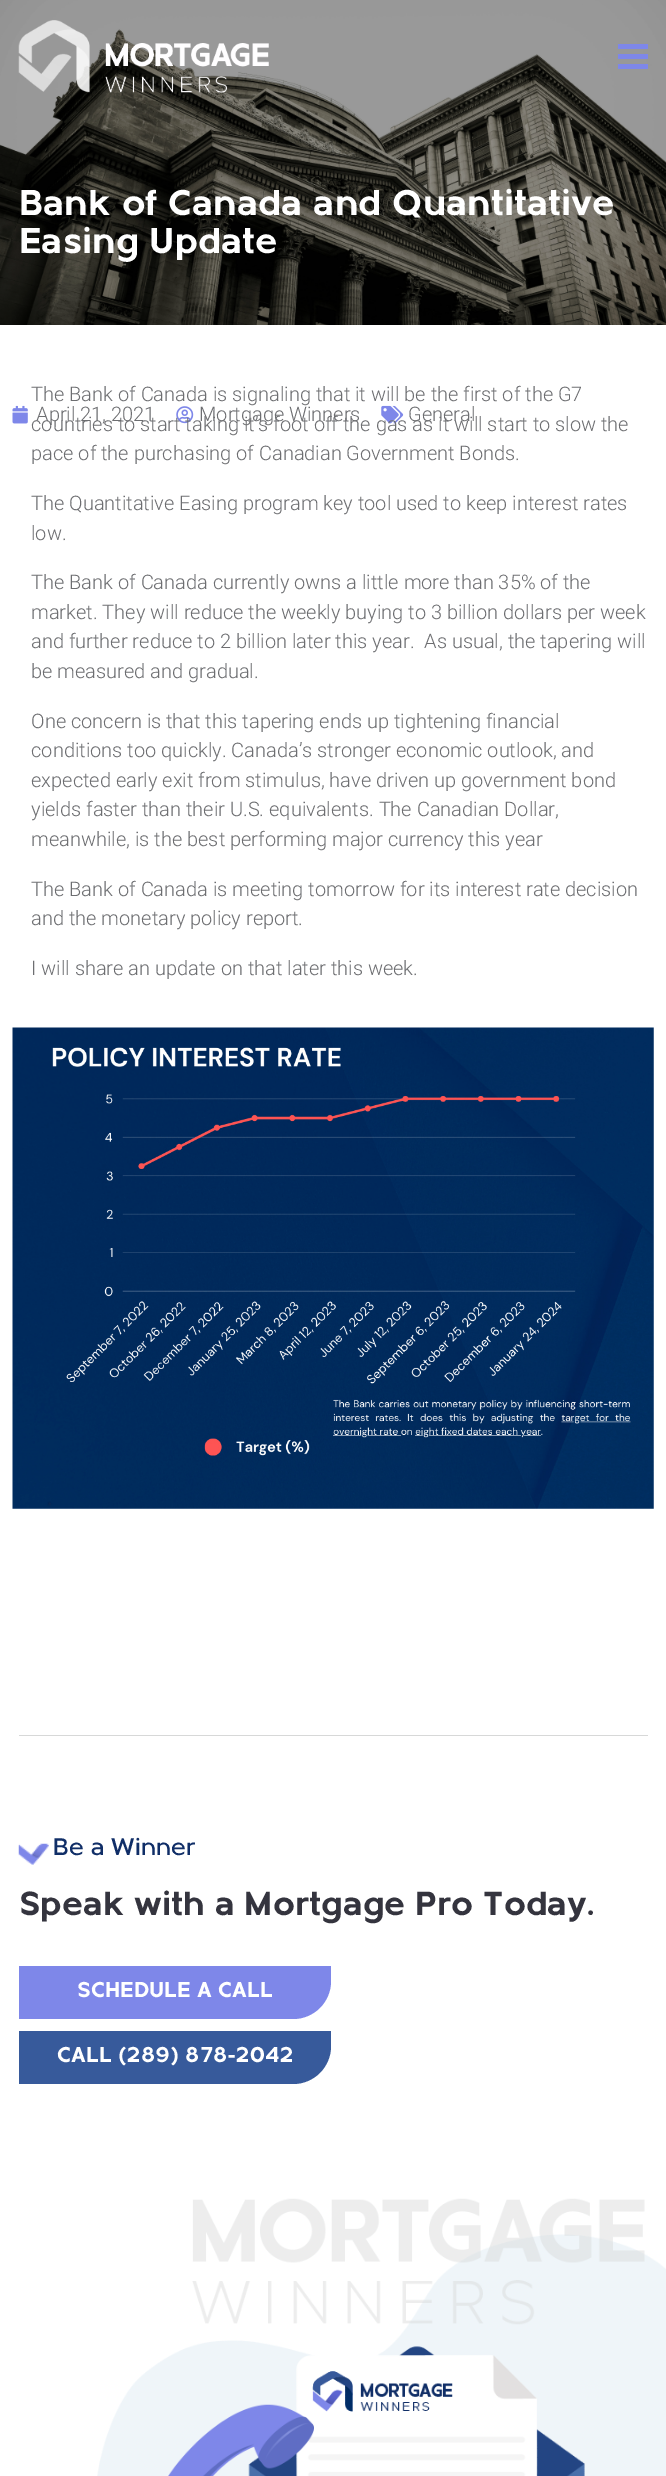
%!PS
<< /PageSize [666 2476] >> setpagedevice
/mt/moveto load def
/li/lineto load def
/ct/curveto load def
/cp/closepath load def
/fl/fill load def
/co { dup -16 bitshift 255 div exch dup -8 bitshift 255 and 255 div exch 255 and 255 div setrgbcolor } def
/fn { [ exch dup neg 0 0 3 -1 roll 0 0 ] selectfont } def
/tx { co fn moveto show } def
/bx { co rectfill } def
/im { 5 dict begin { /h /w /y /x /name } { exch def } forall
  gsave x y translate w h scale
  w h 8 [w 0 0 h 0 0] name (r) file false 3 colorimage grestore end } def
0 2476 translate 1 -1 scale
4 setmiterlimit
0 0 666 2476 16#FFFFFF bx
(media/2.raw) 0 0 666 325 im
(media/1.raw) 18 20 251 73 im
618 44 30 5 16#7E87E9 bx
618 54 30 5 16#7E87E9 bx
618 64 30 5 16#7E87E9 bx
(media/3.raw) 12 405 16 19 im
(media/4.raw) 176 406 18 18 im
(media/5.raw) 381 405 23 19 im
(media/6.raw) 12 1027 642 482 im
19 1735 629 1 16#D7D8D8 bx
(media/7.raw) 18 1843 31 22 im
16#7E87E9 co
19 1966 mt 331 1966 li 331 1981 li 331 2002 314 2019 293 2019 ct 19 2019 li cp fl
16#375A9B co
19 2031 mt 331 2031 li 331 2046 li 331 2067 314 2084 293 2084 ct 19 2084 li cp fl
(media/8.raw) 97 2198 569 278 im
(Bank of Canada and Quantitative) 19 215 /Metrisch-Bold 37.5 16#FFFFFF tx
(Easing Update) 19 253 /Metrisch-Bold 37.5 16#FFFFFF tx
(The Bank of Canada is signaling that it will be the first of the G7) 31 401 /Roboto-Light 20 16#6D6E71 tx
(pace of the purchasing of Canadian Government Bonds.) 31 460 /Roboto-Light 20 16#6D6E71 tx
(The Quantitative Easing program key tool used to keep interest rates) 31 510 /Roboto-Light 20 16#6D6E71 tx
(low.) 31 540 /Roboto-Light 20 16#6D6E71 tx
(The Bank of Canada currently owns a little more than 35% of the) 31 589 /Roboto-Light 20 16#6D6E71 tx
(market. They will reduce the weekly buying to 3 billion dollars per week) 31 619 /Roboto-Light 20 16#6D6E71 tx
(and further reduce to 2 billion later this year.  As usual, the tapering will) 31 648 /Roboto-Light 20 16#6D6E71 tx
(be measured and gradual.) 31 678 /Roboto-Light 20 16#6D6E71 tx
(One concern is that this tapering ends up tightening financial) 31 728 /Roboto-Light 20 16#6D6E71 tx
(conditions too quickly. Canada’s stronger economic outlook, and) 31 757 /Roboto-Light 20 16#6D6E71 tx
(expected early exit from stimulus, have driven up government bond) 31 787 /Roboto-Light 20 16#6D6E71 tx
(yields faster than their U.S. equivalents. The Canadian Dollar,) 31 816 /Roboto-Light 20 16#6D6E71 tx
(meanwhile, is the best performing major currency this year) 31 846 /Roboto-Light 20 16#6D6E71 tx
(The Bank of Canada is meeting tomorrow for its interest rate decision) 31 896 /Roboto-Light 20 16#6D6E71 tx
(and the monetary policy report.) 31 925 /Roboto-Light 20 16#6D6E71 tx
(I will share an update on that later this week.) 31 975 /Roboto-Light 20 16#6D6E71 tx
(April 21, 2021) 36 421 /Roboto-Light 20 16#6D6E71 tx
(Mortgage Winners) 199 421 /Roboto-Light 20 16#6D6E71 tx
(General) 408 421 /Roboto-Light 20 16#6D6E71 tx
(countries to start taking it’s foot off the gas as it will start to slow the) 31 431 /Roboto-Light 20 16#6D6E71 tx
(Be a Winner) 53 1855 /Metrisch-Medium 25 16#102E67 tx
(Speak with a Mortgage Pro Today.) 19 1915 /Metrisch-Bold 35 16#34343E tx
(SCHEDULE A CALL) 77 1997 /Metrisch-Bold 22.5 16#FFFFFF tx
(CALL \(289\) 878-2042) 57 2062 /Metrisch-Bold 22.5 16#FFFFFF tx
showpage
